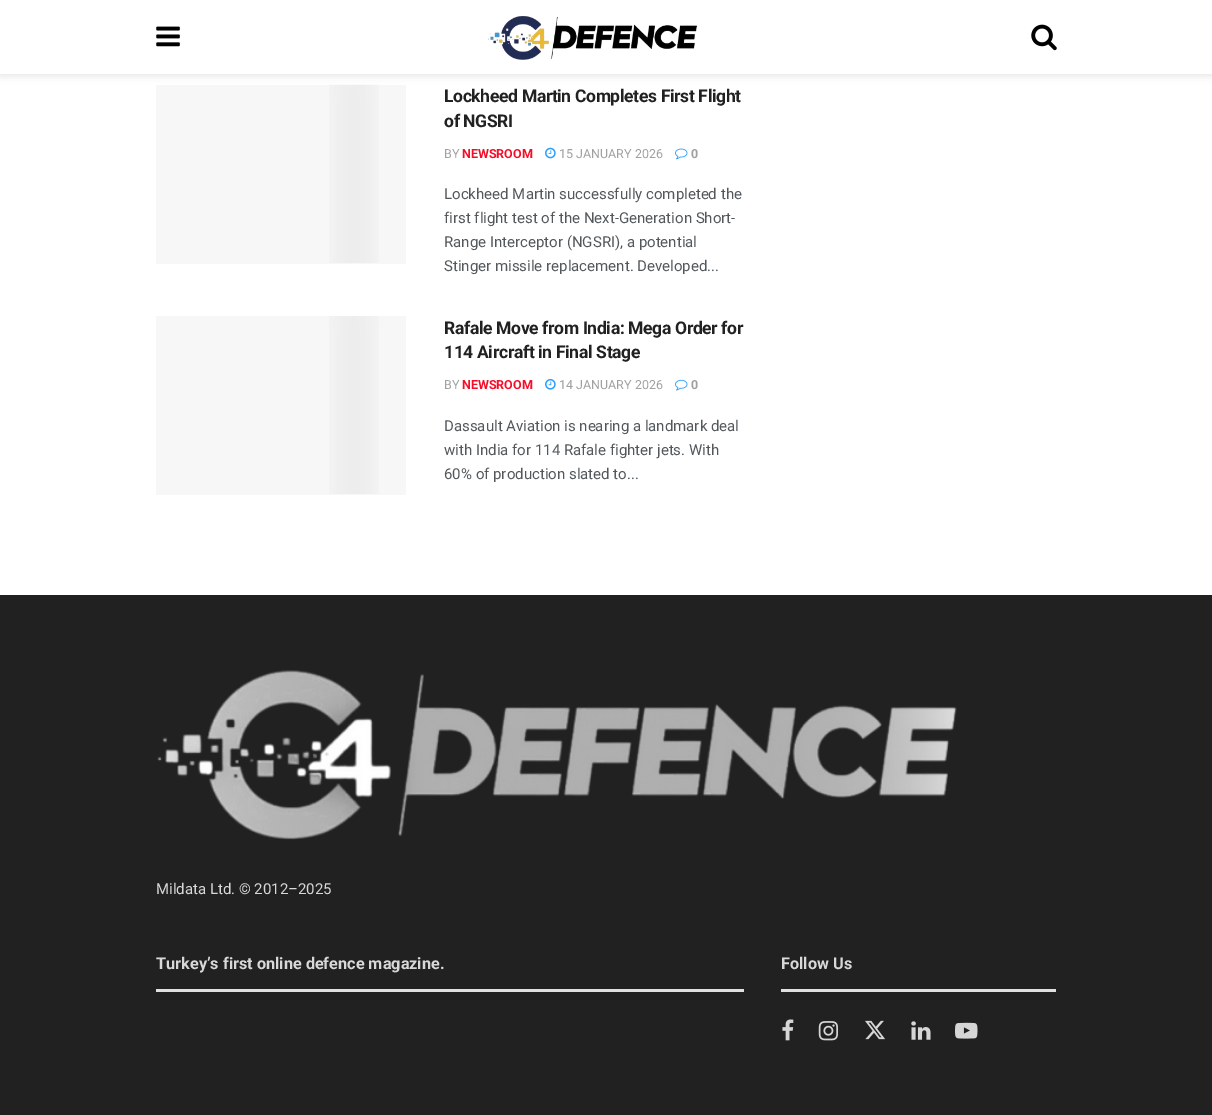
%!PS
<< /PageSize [1212 1115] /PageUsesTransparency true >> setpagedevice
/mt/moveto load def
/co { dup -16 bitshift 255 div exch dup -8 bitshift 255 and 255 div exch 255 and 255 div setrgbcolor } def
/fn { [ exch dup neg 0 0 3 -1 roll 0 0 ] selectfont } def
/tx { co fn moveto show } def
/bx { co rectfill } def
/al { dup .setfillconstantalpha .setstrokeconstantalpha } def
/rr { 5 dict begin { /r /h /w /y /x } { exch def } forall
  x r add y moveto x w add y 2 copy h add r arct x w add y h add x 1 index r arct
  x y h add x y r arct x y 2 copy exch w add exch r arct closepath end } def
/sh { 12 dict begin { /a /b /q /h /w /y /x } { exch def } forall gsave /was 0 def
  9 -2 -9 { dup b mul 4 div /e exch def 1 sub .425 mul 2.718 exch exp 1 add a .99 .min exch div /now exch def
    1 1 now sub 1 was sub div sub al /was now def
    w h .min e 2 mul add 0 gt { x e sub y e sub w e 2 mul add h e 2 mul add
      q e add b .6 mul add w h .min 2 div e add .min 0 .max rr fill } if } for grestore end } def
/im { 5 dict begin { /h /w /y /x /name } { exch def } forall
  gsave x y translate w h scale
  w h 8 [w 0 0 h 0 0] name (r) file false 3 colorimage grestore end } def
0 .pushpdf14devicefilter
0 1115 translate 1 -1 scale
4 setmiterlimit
0 0 1212 1115 16#FFFFFF bx
156 85 250 179 16#F7F7F7 bx
(media/4.raw) 329 84 50 179 im
16#000000 co
0 3 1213 73 0 4 .1 sh
0 0 1212 74 16#FFFFFF bx
(media/1.raw) 156 26 24 21 im
(media/2.raw) 488 16 209 44 im
(media/3.raw) 1031 24 26 27 im
(media/5.raw) 545 147 11 12 im
(media/6.raw) 675 148 13 12 im
156 316 250 179 16#F7F7F7 bx
(media/7.raw) 329 316 50 178 im
(media/8.raw) 545 378 11 12 im
(media/9.raw) 675 379 13 12 im
0 595 1212 520 16#212121 bx
(media/10.raw) 157 670 800 170 im
156 989 588 3 16#E0E0E0 bx
781 989 275 3 16#E0E0E0 bx
(media/11.raw) 782 1019 12 22 im
(media/12.raw) 818 1021 21 20 im
(media/13.raw) 865 1020 20 20 im
(media/14.raw) 911 1021 20 19 im
(media/15.raw) 955 1022 23 17 im
/Roboto-Bold 17.5 fn
16#212121 co
444 102 mt -.35 0 (Lockheed Martin Completes First Flight) ashow
444 127 mt -.35 0 (of NGSRI) ashow
(BY) 444 158 /Roboto-Regular 12.5 16#A0A0A0 tx
(NEWSROOM) 462 158 /Roboto-Bold 12.5 16#F70D28 tx
(15 JANUARY 2026) 559 158 /Roboto-Regular 12.5 16#A0A0A0 tx
(0) 691 158 /Roboto-Bold 12.5 16#A0A0A0 tx
(Lockheed Martin successfully completed the) 444 199 /Roboto-Regular 15 16#53585C tx
(first flight test of the Next-Generation Short-) 444 223 /Roboto-Regular 15 16#53585C tx
(Range Interceptor \(NGSRI\), a potential) 444 247 /Roboto-Regular 15 16#53585C tx
(Stinger missile replacement. Developed...) 444 271 /Roboto-Regular 15 16#53585C tx
/Roboto-Bold 17.5 fn
16#212121 co
444 334 mt -.35 0 (Rafale Move from India: Mega Order for) ashow
444 358 mt -.35 0 (114 Aircraft in Final Stage) ashow
(BY) 444 389 /Roboto-Regular 12.5 16#A0A0A0 tx
(NEWSROOM) 462 389 /Roboto-Bold 12.5 16#F70D28 tx
(14 JANUARY 2026) 559 389 /Roboto-Regular 12.5 16#A0A0A0 tx
(0) 691 389 /Roboto-Bold 12.5 16#A0A0A0 tx
(Dassault Aviation is nearing a landmark deal) 444 431 /Roboto-Regular 15 16#53585C tx
(with India for 114 Rafale fighter jets. With) 444 455 /Roboto-Regular 15 16#53585C tx
(60% of production slated to...) 444 479 /Roboto-Regular 15 16#53585C tx
(Mildata Ltd. © 2012–2025) 156 894 /Roboto-Regular 15 16#D8D8D8 tx
(Turkey’s first online defence magazine.) 156 969 /Roboto-Bold 16.25 16#D8D8D8 tx
(Follow Us) 781 969 /Roboto-Bold 16.25 16#D8D8D8 tx
.poppdf14devicefilter showpage
